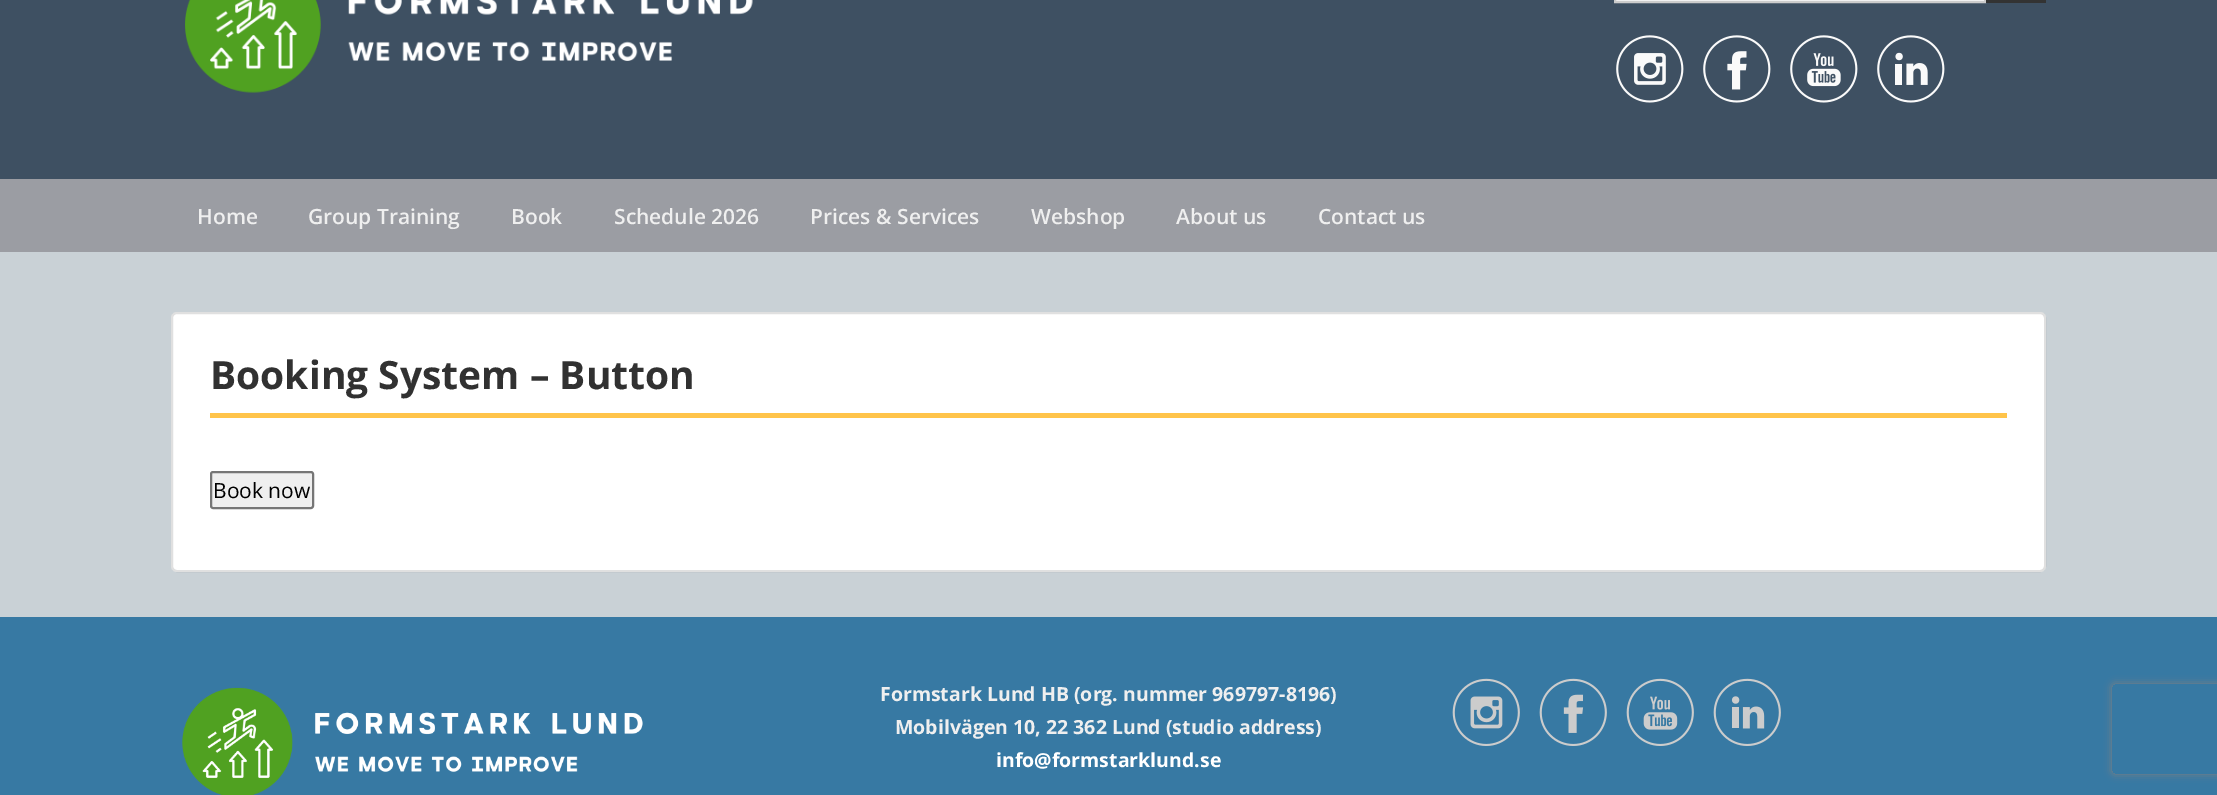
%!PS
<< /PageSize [2217 795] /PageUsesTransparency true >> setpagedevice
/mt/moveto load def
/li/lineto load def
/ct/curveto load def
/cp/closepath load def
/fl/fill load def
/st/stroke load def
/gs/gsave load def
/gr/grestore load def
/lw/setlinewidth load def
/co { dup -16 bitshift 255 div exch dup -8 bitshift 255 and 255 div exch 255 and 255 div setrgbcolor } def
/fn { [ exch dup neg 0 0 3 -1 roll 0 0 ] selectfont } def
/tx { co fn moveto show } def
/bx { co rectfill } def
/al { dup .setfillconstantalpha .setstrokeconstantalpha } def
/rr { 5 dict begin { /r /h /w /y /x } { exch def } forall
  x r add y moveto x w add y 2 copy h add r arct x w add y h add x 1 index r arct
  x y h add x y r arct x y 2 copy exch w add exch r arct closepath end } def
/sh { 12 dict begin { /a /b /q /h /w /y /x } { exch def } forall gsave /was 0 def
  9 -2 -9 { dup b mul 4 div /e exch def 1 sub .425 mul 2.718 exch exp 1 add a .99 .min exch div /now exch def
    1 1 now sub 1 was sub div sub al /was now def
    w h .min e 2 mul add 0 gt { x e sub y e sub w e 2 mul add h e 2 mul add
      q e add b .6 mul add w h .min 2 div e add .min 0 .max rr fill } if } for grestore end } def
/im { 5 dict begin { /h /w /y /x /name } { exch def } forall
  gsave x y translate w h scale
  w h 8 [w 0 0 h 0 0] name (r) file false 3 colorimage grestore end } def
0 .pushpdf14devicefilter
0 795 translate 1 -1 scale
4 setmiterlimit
0 0 2217 795 16#C9D1D6 bx
0 0 2217 179 16#3E5062 bx
(media/1.raw) 185 0 568 93 im
16#FFFFFF co
1615 -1 mt 1985 -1 li 1985 2 li 1615 2 li cp gs fl gr
16#CCCCCC co
2 lw
st
1986 0 60 3 16#333333 bx
(media/2.raw) 1616 35 68 68 im
(media/3.raw) 1703 35 68 68 im
(media/4.raw) 1790 35 68 68 im
(media/5.raw) 1877 35 68 68 im
0 179 2217 73 16#9B9DA3 bx
16#FFFFFF co
171 312 1875 260 6 rr fl
0.12 al
16#000000 co
172 313 1873 258 5 rr st
1 al
210 413 1797 5 16#FFC44A bx
16#EFEFEF co
211 472 102 36 2 rr gs fl gr
16#767676 co
st
0 617 2217 178 16#3779A3 bx
(media/6.raw) 182 687 461 108 im
(media/7.raw) 1452 678 68 68 im
(media/8.raw) 1539 678 68 68 im
(media/9.raw) 1626 678 68 68 im
(media/10.raw) 1713 678 68 68 im
gs
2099 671 mt 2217 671 li 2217 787 li 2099 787 li cp 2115 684 mt 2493 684 li 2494.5 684 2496 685.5 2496 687 ct 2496 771 li 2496 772.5 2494.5 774 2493 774 ct 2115 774 li 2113.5 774 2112 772.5 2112 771 ct 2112 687 li 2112 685.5 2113.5 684 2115 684 ct cp eoclip newpath
16#808080 co
2112 684 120 90 3 4 1 sh
gr
(Home) 197 224 /OpenSans-SemiBold 21 16#EFEFEF tx
(Group Training) 308 224 /OpenSans-SemiBold 21 16#EFEFEF tx
(Book) 511 224 /OpenSans-SemiBold 21 16#EFEFEF tx
(Schedule 2026) 614 224 /OpenSans-SemiBold 21 16#EFEFEF tx
(Prices & Services) 810 224 /OpenSans-SemiBold 21 16#EFEFEF tx
(Webshop) 1031 224 /OpenSans-SemiBold 21 16#EFEFEF tx
(About us) 1176 224 /OpenSans-SemiBold 21 16#EFEFEF tx
(Contact us) 1318 224 /OpenSans-SemiBold 21 16#EFEFEF tx
(Booking System – Button) 210 389 /OpenSans-Bold 39 16#313131 tx
(Book now) 213 498 /OpenSans-Regular 21 16#000000 tx
(Formstark Lund HB \(org. nummer 969797-8196\)) 880 701 /OpenSans-Bold 19.5 16#EFEFEF tx
(Mobilvägen 10, 22 362 Lund \(studio address\)) 895 734 /OpenSans-Bold 19.5 16#EFEFEF tx
(info@formstarklund.se) 996 767 /OpenSans-Bold 19.5 16#FFFFFF tx
.poppdf14devicefilter showpage
